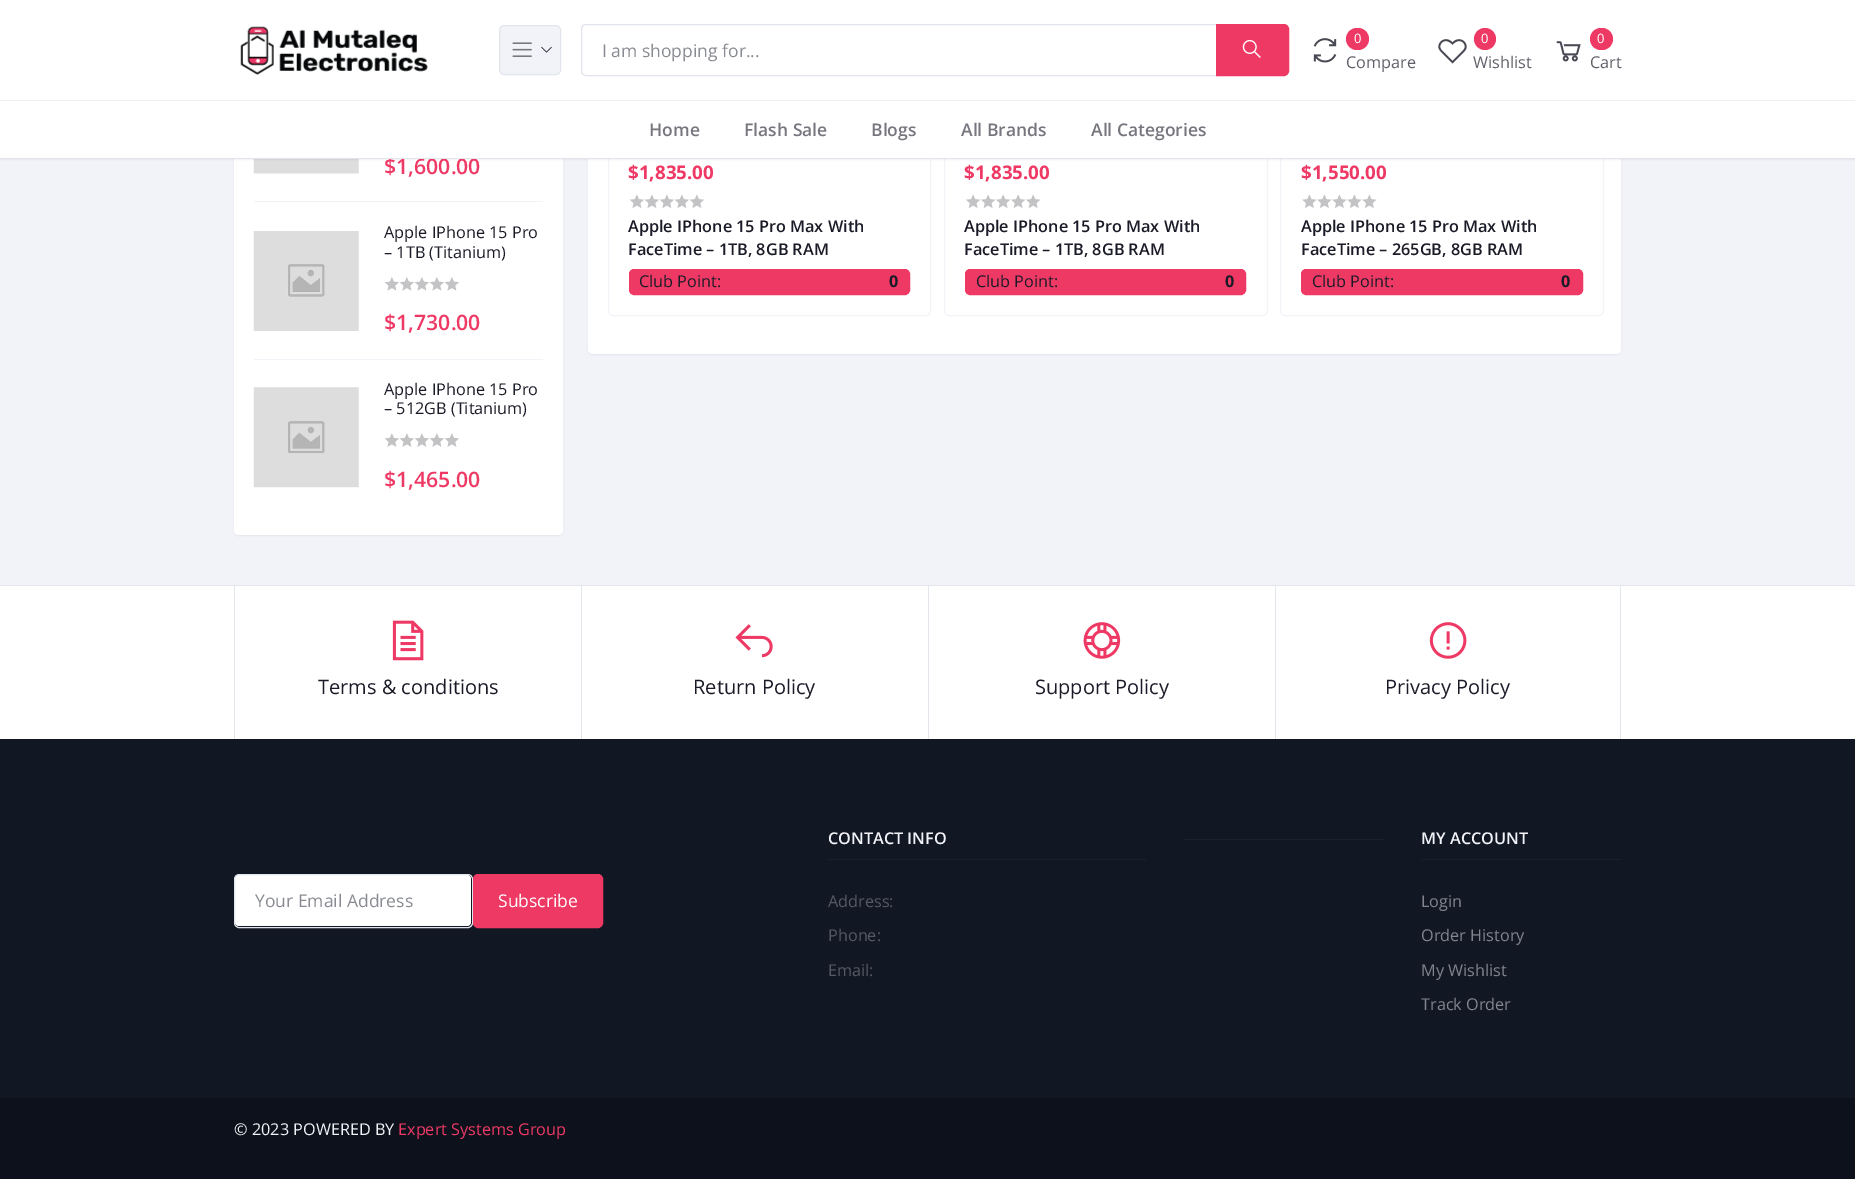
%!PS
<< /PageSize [1855 1179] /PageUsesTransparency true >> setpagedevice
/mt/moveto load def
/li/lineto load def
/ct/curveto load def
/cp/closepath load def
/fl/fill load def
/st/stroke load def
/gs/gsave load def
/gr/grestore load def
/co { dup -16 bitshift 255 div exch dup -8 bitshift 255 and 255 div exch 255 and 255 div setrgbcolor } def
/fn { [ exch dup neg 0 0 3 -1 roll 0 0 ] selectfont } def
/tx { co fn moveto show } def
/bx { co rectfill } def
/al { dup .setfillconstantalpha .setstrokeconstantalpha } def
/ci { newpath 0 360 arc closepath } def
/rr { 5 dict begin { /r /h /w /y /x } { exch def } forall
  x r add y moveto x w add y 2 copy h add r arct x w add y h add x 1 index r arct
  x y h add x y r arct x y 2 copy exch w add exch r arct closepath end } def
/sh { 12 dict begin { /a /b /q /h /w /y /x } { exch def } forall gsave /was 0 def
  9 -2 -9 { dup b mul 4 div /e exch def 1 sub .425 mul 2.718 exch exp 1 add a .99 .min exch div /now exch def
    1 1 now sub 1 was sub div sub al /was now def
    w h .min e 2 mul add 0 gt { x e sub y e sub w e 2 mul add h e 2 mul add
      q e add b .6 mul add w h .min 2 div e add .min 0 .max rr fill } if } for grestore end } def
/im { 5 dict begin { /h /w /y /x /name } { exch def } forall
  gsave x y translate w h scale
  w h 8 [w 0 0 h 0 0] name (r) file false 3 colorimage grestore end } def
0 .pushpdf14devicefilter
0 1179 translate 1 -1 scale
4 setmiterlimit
0 0 1855 1179 16#F2F3F8 bx
16#000000 co
234 -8 329 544 5 1 .05 sh
16#FFFFFF co
234 -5 329 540 5 rr fl
(media/8.raw) 253 159 106 15 im
16#000000 co
588 -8 1033 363 5 1 .05 sh
16#FFFFFF co
588 -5 1033 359 5 rr fl
16#F2F3F8 co
608.5 -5.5 322 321 4.5 rr st
944.5 -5.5 323 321 4.5 rr st
1280.5 -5.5 323 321 4.5 rr st
16#000000 co
0 1 1855 159 0 1 .05 sh
254 201 289 1 16#F2F3F8 bx
254 359 289 1 16#F2F3F8 bx
(media/9.raw) 253 231 106 100 im
(media/10.raw) 384 277 15 14 im
(media/10.raw) 399 277 15 14 im
(media/10.raw) 414 277 15 14 im
(media/10.raw) 429 277 15 14 im
(media/10.raw) 444 277 15 14 im
(media/11.raw) 253 387 106 101 im
(media/12.raw) 384 433 15 14 im
(media/12.raw) 399 433 15 14 im
(media/12.raw) 414 433 15 14 im
(media/12.raw) 429 433 15 14 im
(media/12.raw) 444 433 15 14 im
(media/13.raw) 629 194 15 14 im
(media/13.raw) 644 194 15 14 im
(media/13.raw) 659 194 15 14 im
(media/13.raw) 674 194 15 14 im
(media/13.raw) 689 194 15 14 im
16#EE3965 co
629.5 269.5 280 25 4.5 rr gs fl gr
st
(media/14.raw) 966 194 15 14 im
(media/14.raw) 981 194 15 14 im
(media/14.raw) 996 194 15 14 im
(media/14.raw) 1011 194 15 14 im
(media/14.raw) 1026 194 15 14 im
965.5 269.5 280 25 4.5 rr gs fl gr
st
(media/15.raw) 1302 194 15 14 im
(media/15.raw) 1317 194 15 14 im
(media/15.raw) 1332 194 15 14 im
(media/15.raw) 1347 194 15 14 im
(media/15.raw) 1362 194 15 14 im
1301.5 269.5 281 25 4.5 rr gs fl gr
st
0 586 1855 153 16#FFFFFF bx
0 585 1855 1 16#E2E5EC bx
234 586 1 153 16#E2E5EC bx
(media/16.raw) 392 620 32 41 im
581 586 1 153 16#E2E5EC bx
(media/17.raw) 735 624 38 34 im
928 586 1 153 16#E2E5EC bx
(media/18.raw) 1083 622 38 37 im
1620 586 1 153 16#E2E5EC bx
1275 586 1 153 16#E2E5EC bx
(media/19.raw) 1429 622 38 37 im
0 739 1855 359 16#111723 bx
828 859 318 1 16#1A202C bx
1184 839 200 1 16#1A202C bx
1421 859 200 1 16#1A202C bx
16#FFFFFF co
235 875 236 51 4 rr fl
16#E2E5EC co
234.5 874.5 238 53 4.5 rr st
16#EE3965 co
473.5 874.5 129 53 4.5 rr gs fl gr
st
0 1098 1855 81 16#0D111B bx
($1,600.00) 384 174 /OpenSans-SemiBold 21.25 16#EE3965 tx
0 0 1855 158 16#FFFFFF bx
16#E2E5EC co
586 24.5 mt 1217.5 24.5 li 1217.5 75.5 li 586 75.5 li 583.5 75.5 581.5 73.5 581.5 71 ct 581.5 29 li 581.5 26.5 583.5 24.5 586 24.5 ct cp st
16#EE3965 co
1216.5 24.5 mt 1284 24.5 li 1286.5 24.5 1288.5 26.5 1288.5 29 ct 1288.5 71 li 1288.5 73.5 1286.5 75.5 1284 75.5 ct 1216.5 75.5 li cp gs fl gr
st
(media/4.raw) 1242 39 19 19 im
(Cart) 1590 68 /OpenSans-Regular 16.25 16#5F5F69 tx
(media/7.raw) 1556 41 25 21 im
16#EE3965 co
1590 28 23 22 11 rr fl
(0) 1597 43 /OpenSans-Regular 13 16#FFFFFF tx
(Wishlist) 1473 68 /OpenSans-Regular 16.25 16#5F5F69 tx
(media/6.raw) 1438 39 29 25 im
(Compare) 1346 68 /OpenSans-Regular 16.25 16#5F5F69 tx
(media/5.raw) 1313 38 24 25 im
(I am shopping for...) 602 57 /OpenSans-Regular 17.5 16#898B92 tx
16#F2F3F8 co
499.5 25.5 61 49 4.5 rr gs fl gr
16#E2E5EC co
st
(media/3.raw) 541 46 11 7 im
(media/2.raw) 512 42 20 15 im
(media/1.raw) 240 26 188 49 im
16#EE3965 co
1485 39 11 ci fl
(0) 1481 43 /OpenSans-Regular 13 16#FFFFFF tx
16#EE3965 co
1346 28 23 22 11 rr fl
(0) 1354 43 /OpenSans-Regular 13 16#FFFFFF tx
(All Categories) 1091 136 /OpenSans-SemiBold 17.5 16#76767E tx
(All Brands) 961 136 /OpenSans-SemiBold 17.5 16#76767E tx
(Blogs) 871 136 /OpenSans-SemiBold 17.5 16#76767E tx
(Flash Sale) 744 136 /OpenSans-SemiBold 17.5 16#76767E tx
(Home) 649 136 /OpenSans-SemiBold 17.5 16#76767E tx
0 100 1855 1 16#EDF2F7 bx
0 158 1855 1 16#E2E5EC bx
(Apple IPhone 15 Pro) 384 238 /OpenSans-Regular 16.25 16#1B1B28 tx
(– 1TB \(Titanium\)) 384 258 /OpenSans-Regular 16.25 16#1B1B28 tx
($1,730.00) 384 330 /OpenSans-SemiBold 21.25 16#EE3965 tx
(Apple IPhone 15 Pro) 384 395 /OpenSans-Regular 16.25 16#1B1B28 tx
(– 512GB \(Titanium\)) 384 414 /OpenSans-Regular 16.25 16#1B1B28 tx
($1,465.00) 384 487 /OpenSans-SemiBold 21.25 16#EE3965 tx
($1,835.00) 628 179 /OpenSans-Bold 18.75 16#EE3965 tx
(Apple IPhone 15 Pro Max With) 628 232 /OpenSans-SemiBold 16.25 16#1B1B28 tx
(FaceTime – 1TB, 8GB RAM) 628 255 /OpenSans-SemiBold 16.25 16#1B1B28 tx
(Club Point:) 639 287 /OpenSans-Regular 16.25 16#1B1B28 tx
(0) 889 287 /OpenSans-Bold 16.25 16#1B1B28 tx
($1,835.00) 964 179 /OpenSans-Bold 18.75 16#EE3965 tx
(Apple IPhone 15 Pro Max With) 964 232 /OpenSans-SemiBold 16.25 16#1B1B28 tx
(FaceTime – 1TB, 8GB RAM) 964 255 /OpenSans-SemiBold 16.25 16#1B1B28 tx
(Club Point:) 976 287 /OpenSans-Regular 16.25 16#1B1B28 tx
(0) 1225 287 /OpenSans-Bold 16.25 16#1B1B28 tx
($1,550.00) 1301 179 /OpenSans-Bold 18.75 16#EE3965 tx
(Apple IPhone 15 Pro Max With) 1301 232 /OpenSans-SemiBold 16.25 16#1B1B28 tx
(FaceTime – 265GB, 8GB RAM) 1301 255 /OpenSans-SemiBold 16.25 16#1B1B28 tx
(Club Point:) 1312 287 /OpenSans-Regular 16.25 16#1B1B28 tx
(0) 1561 287 /OpenSans-Bold 16.25 16#1B1B28 tx
(Terms & conditions) 318 694 /OpenSans-Regular 20 16#1B1B28 tx
(Return Policy) 693 694 /OpenSans-Regular 20 16#1B1B28 tx
(Support Policy) 1035 694 /OpenSans-Regular 20 16#1B1B28 tx
(Privacy Policy) 1385 694 /OpenSans-Regular 20 16#1B1B28 tx
(CONTACT INFO) 828 844 /OpenSans-SemiBold 16.25 16#F2F3F8 tx
(Address:) 828 907 /OpenSans-Regular 16.25 16#555963 tx
(Phone:) 828 941 /OpenSans-Regular 16.25 16#555963 tx
(Email:) 828 976 /OpenSans-Regular 16.25 16#555963 tx
(MY ACCOUNT) 1421 844 /OpenSans-SemiBold 16.25 16#F2F3F8 tx
(Login) 1421 907 /OpenSans-Regular 16.25 16#82858E tx
(Order History) 1421 941 /OpenSans-Regular 16.25 16#82858E tx
(My Wishlist) 1421 976 /OpenSans-Regular 16.25 16#82858E tx
(Track Order) 1421 1010 /OpenSans-Regular 16.25 16#82858E tx
(Your Email Address) 255 907 /OpenSans-Regular 17.5 16#898B92 tx
(Subscribe) 498 907 /OpenSans-Regular 17.5 16#FFFFFF tx
(© 2023 POWERED BY) 234 1135 /OpenSans-Regular 16.25 16#F2F3F8 tx
(Expert Systems Group) 398 1135 /OpenSans-Regular 16.25 16#EE3965 tx
.poppdf14devicefilter showpage
